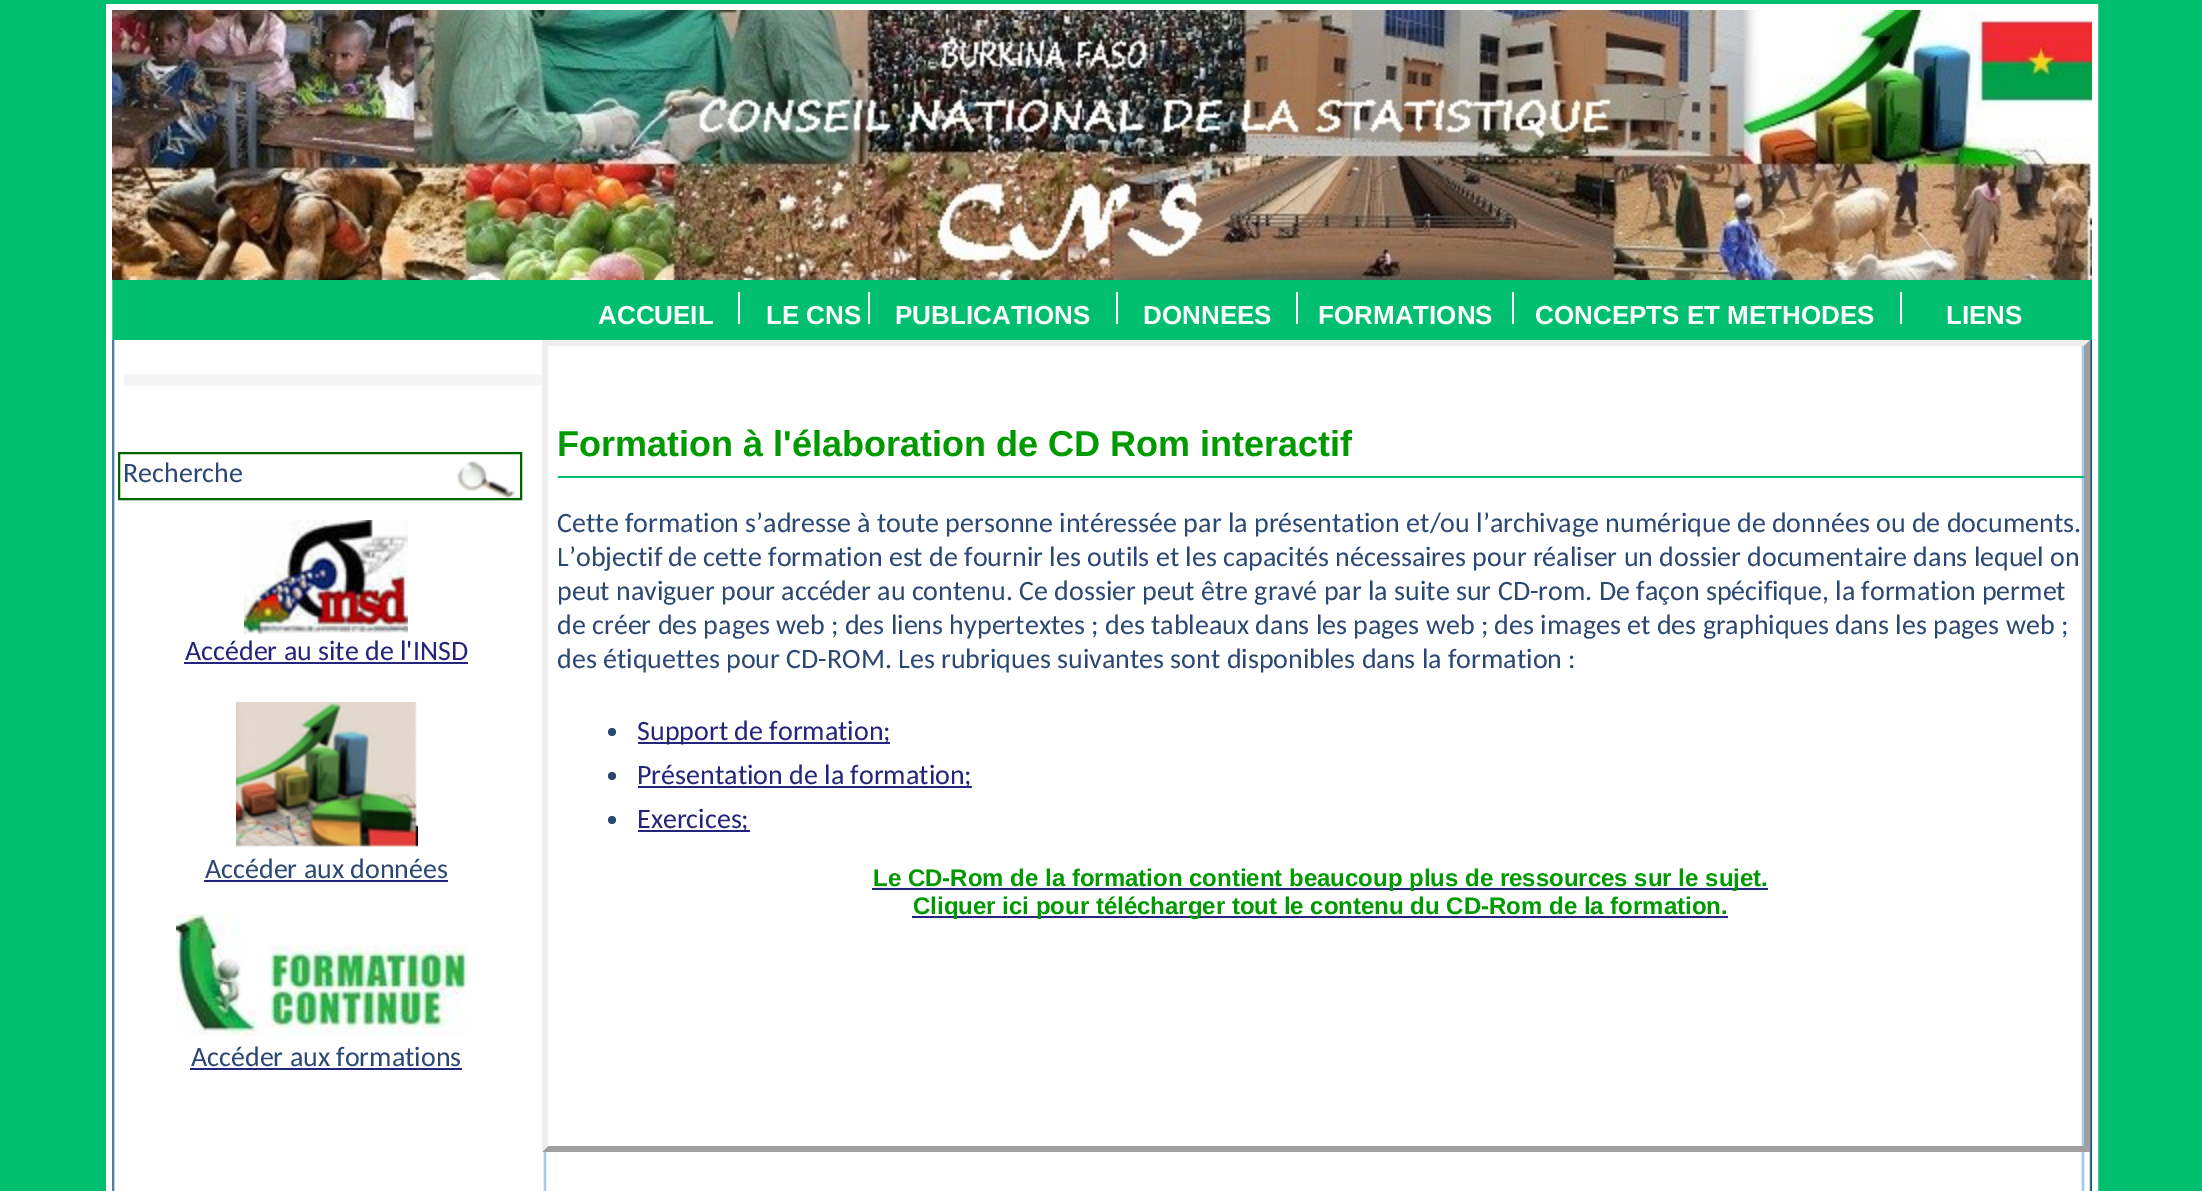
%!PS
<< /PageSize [2202 1191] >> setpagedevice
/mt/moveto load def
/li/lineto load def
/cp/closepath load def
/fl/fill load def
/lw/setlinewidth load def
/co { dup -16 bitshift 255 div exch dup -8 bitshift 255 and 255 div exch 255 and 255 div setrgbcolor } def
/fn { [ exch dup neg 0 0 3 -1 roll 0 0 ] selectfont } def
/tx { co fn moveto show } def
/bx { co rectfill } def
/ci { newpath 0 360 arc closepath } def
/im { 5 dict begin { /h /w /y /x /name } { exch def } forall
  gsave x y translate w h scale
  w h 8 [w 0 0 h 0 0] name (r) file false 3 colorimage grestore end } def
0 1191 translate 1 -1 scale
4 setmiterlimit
0 0 2202 1191 16#00BF6F bx
(media/1.raw) 112 340 1980 851 im
16#FFFFFF co
6 lw
109 7 1986 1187 rectstroke
(media/2.raw) 112 10 1980 270 im
(media/3.raw) 738 292 2 32 im
(media/3.raw) 868 292 2 32 im
(media/3.raw) 1116 292 2 32 im
(media/3.raw) 1296 292 2 32 im
(media/3.raw) 1512 292 2 32 im
(media/3.raw) 1900 292 2 32 im
124 374 418 12 16#F5F5F5 bx
(media/4.raw) 457 461 58 37 im
16#006400 co
2 lw
119 453 402 46 rectstroke
(media/5.raw) 244 520 164 114 im
184 662 284 2 16#23257C bx
(media/6.raw) 236 702 182 145 im
204 880 244 2 16#23257C bx
(media/7.raw) 176 914 291 122 im
190 1068 272 2 16#23257C bx
16#EEEEEE co
542 340 mt 2090 340 li 2084 346 li 548 346 li cp fl
16#9F9F9F co
2090 340 mt 2090 1152 li 2084 1146 li 2084 346 li cp fl
2090 1152 mt 542 1152 li 548 1146 li 2084 1146 li cp fl
16#EEEEEE co
542 1152 mt 542 340 li 548 346 li 548 1146 li cp fl
558 476 1526 2 16#00BF6F bx
16#2B4773 co
612 732 4 ci fl
638 742 252 2 16#23257C bx
16#2B4773 co
612 776 4 ci fl
638 786 334 2 16#23257C bx
16#2B4773 co
612 820 4 ci fl
638 830 112 2 16#23257C bx
872 888 896 2 16#23257C bx
912 916 816 2 16#23257C bx
(ACCUEIL) 598 324 /LiberationSans-Bold 26 16#FFFFFF tx
(LE CNS) 766 324 /LiberationSans-Bold 26 16#FFFFFF tx
(PUBLICATIONS) 895 324 /LiberationSans-Bold 26 16#FFFFFF tx
(DONNEES) 1143 324 /LiberationSans-Bold 26 16#FFFFFF tx
(FORMATIONS) 1318 324 /LiberationSans-Bold 26 16#FFFFFF tx
(CONCEPTS ET METHODES) 1535 324 /LiberationSans-Bold 26 16#FFFFFF tx
(LIENS) 1946 324 /LiberationSans-Bold 26 16#FFFFFF tx
(Recherche) 123 482 /Carlito-Regular 28 16#2B4773 tx
(Accéder au site de l'INSD) 185 660 /Carlito-Regular 28 16#23257C tx
(Accéder aux données) 205 878 /Carlito-Regular 28 16#2B4773 tx
(Accéder aux formations) 191 1066 /Carlito-Regular 28 16#2B4773 tx
(Formation à l'élaboration de CD Rom interactif) 557 456 /LiberationSans-Bold 36 16#009900 tx
(Cette formation s’adresse à toute personne intéressée par la présentation et/ou l’archivage numérique de données ou de documents.) 557 532 /Carlito-Regular 28 16#2B4773 tx
(L’objectif de cette formation est de fournir les outils et les capacités nécessaires pour réaliser un dossier documentaire dans lequel on) 557 566 /Carlito-Regular 28 16#2B4773 tx
(peut naviguer pour accéder au contenu. Ce dossier peut être gravé par la suite sur CD-rom. De façon spécifique, la formation permet) 557 600 /Carlito-Regular 28 16#2B4773 tx
(de créer des pages web ; des liens hypertextes ; des tableaux dans les pages web ; des images et des graphiques dans les pages web ;) 557 634 /Carlito-Regular 28 16#2B4773 tx
(des étiquettes pour CD-ROM. Les rubriques suivantes sont disponibles dans la formation :) 557 668 /Carlito-Regular 28 16#2B4773 tx
(Support de formation;) 637 740 /Carlito-Regular 28 16#23257C tx
(Présentation de la formation;) 637 784 /Carlito-Regular 28 16#23257C tx
(Exercices;) 637 828 /Carlito-Regular 28 16#23257C tx
(Le CD-Rom de la formation contient beaucoup plus de ressources sur le sujet.) 873 886 /LiberationSans-Bold 24 16#009900 tx
(Cliquer ici pour télécharger tout le contenu du CD-Rom de la formation.) 913 914 /LiberationSans-Bold 24 16#009900 tx
showpage
